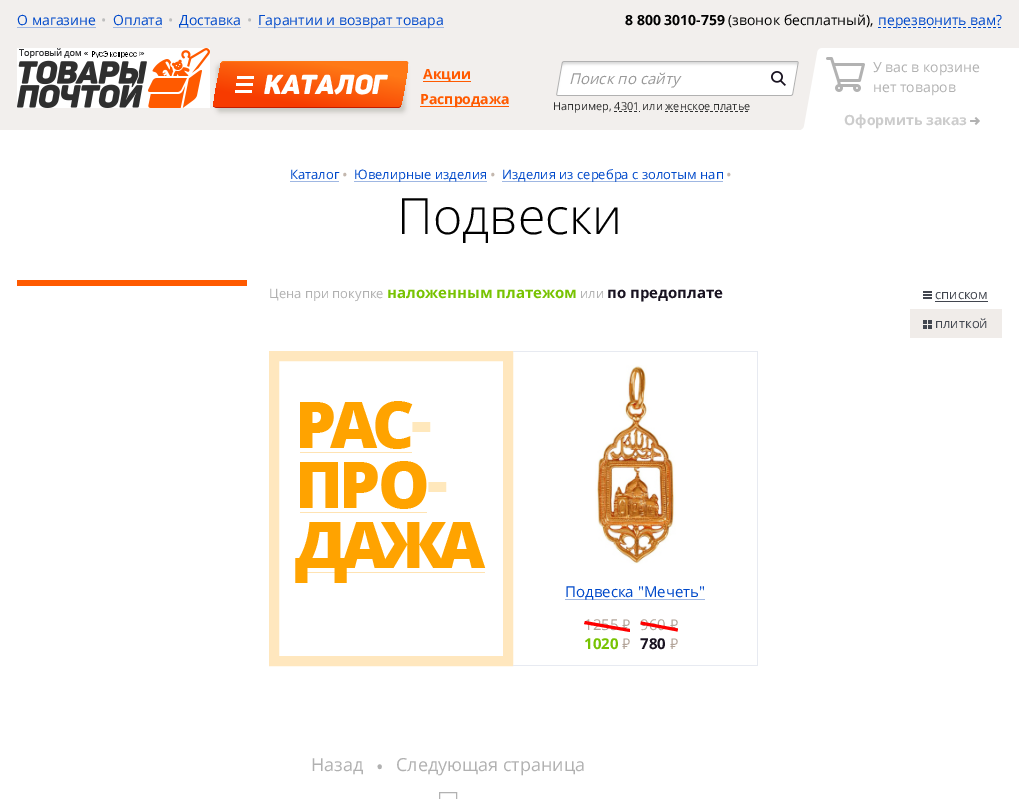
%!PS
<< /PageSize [1019 799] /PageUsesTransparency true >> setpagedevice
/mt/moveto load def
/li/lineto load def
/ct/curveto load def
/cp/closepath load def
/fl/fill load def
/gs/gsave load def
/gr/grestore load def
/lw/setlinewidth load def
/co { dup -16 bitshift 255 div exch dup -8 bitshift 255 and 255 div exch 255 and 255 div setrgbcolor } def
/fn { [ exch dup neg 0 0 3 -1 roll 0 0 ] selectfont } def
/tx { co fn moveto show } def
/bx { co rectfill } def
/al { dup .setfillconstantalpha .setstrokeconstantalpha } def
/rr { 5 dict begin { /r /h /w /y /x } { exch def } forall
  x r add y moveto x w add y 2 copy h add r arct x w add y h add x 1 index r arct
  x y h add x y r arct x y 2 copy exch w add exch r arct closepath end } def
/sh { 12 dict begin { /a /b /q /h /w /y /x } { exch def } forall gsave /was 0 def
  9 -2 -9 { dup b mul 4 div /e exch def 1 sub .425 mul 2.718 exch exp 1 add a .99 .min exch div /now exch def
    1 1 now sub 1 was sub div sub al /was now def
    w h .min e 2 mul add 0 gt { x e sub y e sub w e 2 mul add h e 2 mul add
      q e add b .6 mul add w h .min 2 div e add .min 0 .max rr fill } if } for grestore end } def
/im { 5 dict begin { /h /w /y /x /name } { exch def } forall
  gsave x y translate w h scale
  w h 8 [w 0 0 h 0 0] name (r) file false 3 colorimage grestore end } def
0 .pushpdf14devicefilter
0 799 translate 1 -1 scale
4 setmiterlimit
0 0 1019 799 16#FFFFFF bx
0 0 1019 130 16#F2EFED bx
17 27 79 1 16#9FB7E2 bx
113 27 49 1 16#9FB7E2 bx
179 27 62 1 16#9FB7E2 bx
258 27 186 1 16#9FB7E2 bx
(media/1.raw) 878 27 123 1 im
(media/2.raw) 17 48 193 60 im
16#49513D co
217 65 188 47 3 2.5 .25 sh
gs 221 63 mt 222 62 li 408 62 li 408 64 li 408 68 402 105 400 107 ct 214 107 li 212 105 220 69 221 63 ct cp clip newpath
<< /ShadingType 2 /ColorSpace /DeviceRGB /Coords [307 107 315 62] /Extend [true true] /Function << /FunctionType 2 /Domain [0 1] /C0 [.969 .231 0] /C1 [1 .475 .086] /N 1 >> >> shfill gr
16#FF7916 co
224 61 mt 222 61 221 62 221 64 ct 221 63 222 62 224 62 ct 406 62 li 407 62 408 63 408 64 ct 409 62 407 61 406 61 ct cp fl
16#C21D00 co
398 108 mt 399 108 401 107 401 105 ct 401 106 400 107 399 107 ct 215 107 li 213 106 li 214 107 li 216 108 li cp fl
(media/3.raw) 235 76 19 17 im
423 81 48 1 16#FF5A00 bx
420 106 89 1 16#FF5A00 bx
(media/4.raw) 556 61 243 35 im
(media/5.raw) 771 71 15 15 im
614 111 3 1 16#2F2F2F bx
619 111 3 1 16#2F2F2F bx
624 111 3 1 16#2F2F2F bx
629 111 3 1 16#2F2F2F bx
634 111 3 1 16#2F2F2F bx
639 111 1 1 16#2F2F2F bx
665 111 3 1 16#2F2F2F bx
670 111 3 1 16#2F2F2F bx
675 111 3 1 16#2F2F2F bx
680 111 3 1 16#2F2F2F bx
685 111 3 1 16#2F2F2F bx
690 111 3 1 16#2F2F2F bx
695 111 3 1 16#2F2F2F bx
700 111 3 1 16#2F2F2F bx
705 111 3 1 16#2F2F2F bx
710 111 3 1 16#2F2F2F bx
715 111 3 1 16#2F2F2F bx
720 111 3 1 16#2F2F2F bx
725 111 3 1 16#2F2F2F bx
730 111 3 1 16#2F2F2F bx
735 111 3 1 16#2F2F2F bx
740 111 3 1 16#2F2F2F bx
745 111 3 1 16#2F2F2F bx
(media/6.raw) 801 48 21 82 im
822 48 197 82 16#FFFFFF bx
(media/7.raw) 826 57 39 35 im
(media/8.raw) 970 117 10 8 im
290 181 49 1 16#9FB7E2 bx
354 181 133 1 16#9FB7E2 bx
502 181 221 1 16#9FB7E2 bx
17 280 230 6 16#FF5A00 bx
(media/9.raw) 923 291 9 8 im
935 301 53 1 16#42464F bx
910 309 92 29 16#F0ECE9 bx
(media/10.raw) 923 320 9 9 im
16#FFE7BE co
10 lw
274 356 234 305 rectstroke
(media/11.raw) 295 401 191 182 im
757 351 1 315 16#E7EAF1 bx
513 665 245 1 16#E7EAF1 bx
513 351 245 1 16#E7EAF1 bx
(media/12.raw) 595 365 81 199 im
565 599 140 1 16#9FB7E2 bx
16#B2B2B2 co
1 lw
439.5 792.5 17 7 rectstroke
(О магазине) 17 25 /OpenSans-Regular 14 16#0049CA tx
(•) 101 25 /OpenSans-Regular 14 16#BEBEBE tx
(Оплата) 113 25 /OpenSans-Regular 14 16#0049CA tx
(•) 168 25 /OpenSans-Regular 14 16#BEBEBE tx
(Доставка) 179 25 /OpenSans-Regular 14 16#0049CA tx
(•) 247 25 /OpenSans-Regular 14 16#BEBEBE tx
(Гарантии и возврат товара) 258 25 /OpenSans-Regular 14 16#0049CA tx
(8 800 3010-759) 625 25 /OpenSans-Bold 14 16#000000 tx
(\(звонок бесплатный\),) 728 25 /OpenSans-Regular 14 16#000000 tx
(перезвонить вам?) 878 25 /OpenSans-Regular 14 16#0049CA tx
(КАТАЛОГ) 264 94 /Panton-Italic 27 16#FFFFFF tx
(Акции) 423 79 /OpenSans-Bold 14 16#FF5A00 tx
(Распродажа) 420 104 /OpenSans-Bold 14 16#FF5A00 tx
(Поиск по сайту) 569 84 /OpenSans-Italic 15 16#999999 tx
(Например, 4301 или женское платье) 553 110 /OpenSans-Regular 11 16#2F2F2F tx
(У вас в корзине) 873 72 /OpenSans-Regular 14 16#B1B1B1 tx
(нет товаров) 873 92 /OpenSans-Regular 14 16#B1B1B1 tx
(Оформить заказ) 844 125 /OpenSans-Bold 14 16#CCCCCC tx
(Каталог) 290 179 /OpenSans-Regular 13 16#0049CA tx
(•) 342 180 /OpenSans-Regular 15 16#C4B8AF tx
(Ювелирные изделия) 354 179 /OpenSans-Regular 13 16#0049CA tx
(•) 490 180 /OpenSans-Regular 15 16#C4B8AF tx
(Изделия из серебра с золотым нап) 502 179 /OpenSans-Regular 13 16#0049CA tx
(•) 726 180 /OpenSans-Regular 15 16#C4B8AF tx
(Подвески) 397 234 /OpenSans-Light 50 16#000000 tx
(Цена при покупке) 269 298 /OpenSans-Regular 13 16#B1B1B1 tx
(наложенным платежом) 387 298 /OpenSans-Bold 15 16#78C303 tx
(или) 580 298 /OpenSans-Regular 13 16#B1B1B1 tx
(по предоплате) 607 298 /OpenSans-Bold 15 16#191321 tx
(списком) 935 299 /OpenSans-Regular 13 16#42464F tx
(плиткой) 935 328 /OpenSans-Regular 13 16#42464F tx
(Подвеска "Мечеть") 565 597 /OpenSans-Regular 15 16#0049CA tx
(1255) 584 630 /OpenSans-Regular 15 16#B3A499 tx
(₽) 622 630 /PTSans-Regular 15 16#B3A499 tx
16#FF0000 co
585 621 mt 630 629 li 630 632 li 584 624 li cp fl
(1020) 584 649 /OpenSans-Bold 15 16#78C303 tx
(₽) 622 649 /PTSans-Regular 15 16#B3A499 tx
(960) 640 630 /OpenSans-Regular 15 16#B3A499 tx
(₽) 670 630 /PTSans-Regular 15 16#B3A499 tx
16#FF0000 co
641 621.5 mt 678 628.5 li 677.5 631.5 li 640.5 624.5 li cp fl
(780) 640 649 /OpenSans-Bold 15 16#191321 tx
(₽) 670 649 /PTSans-Regular 15 16#B3A499 tx
(Назад) 311 771 /OpenSans-Regular 18 16#B1B1B1 tx
(•) 376 774 /OpenSans-Regular 20 16#B1B1B1 tx
(Следующая страница) 396 771 /OpenSans-Regular 18 16#B1B1B1 tx
.poppdf14devicefilter showpage
